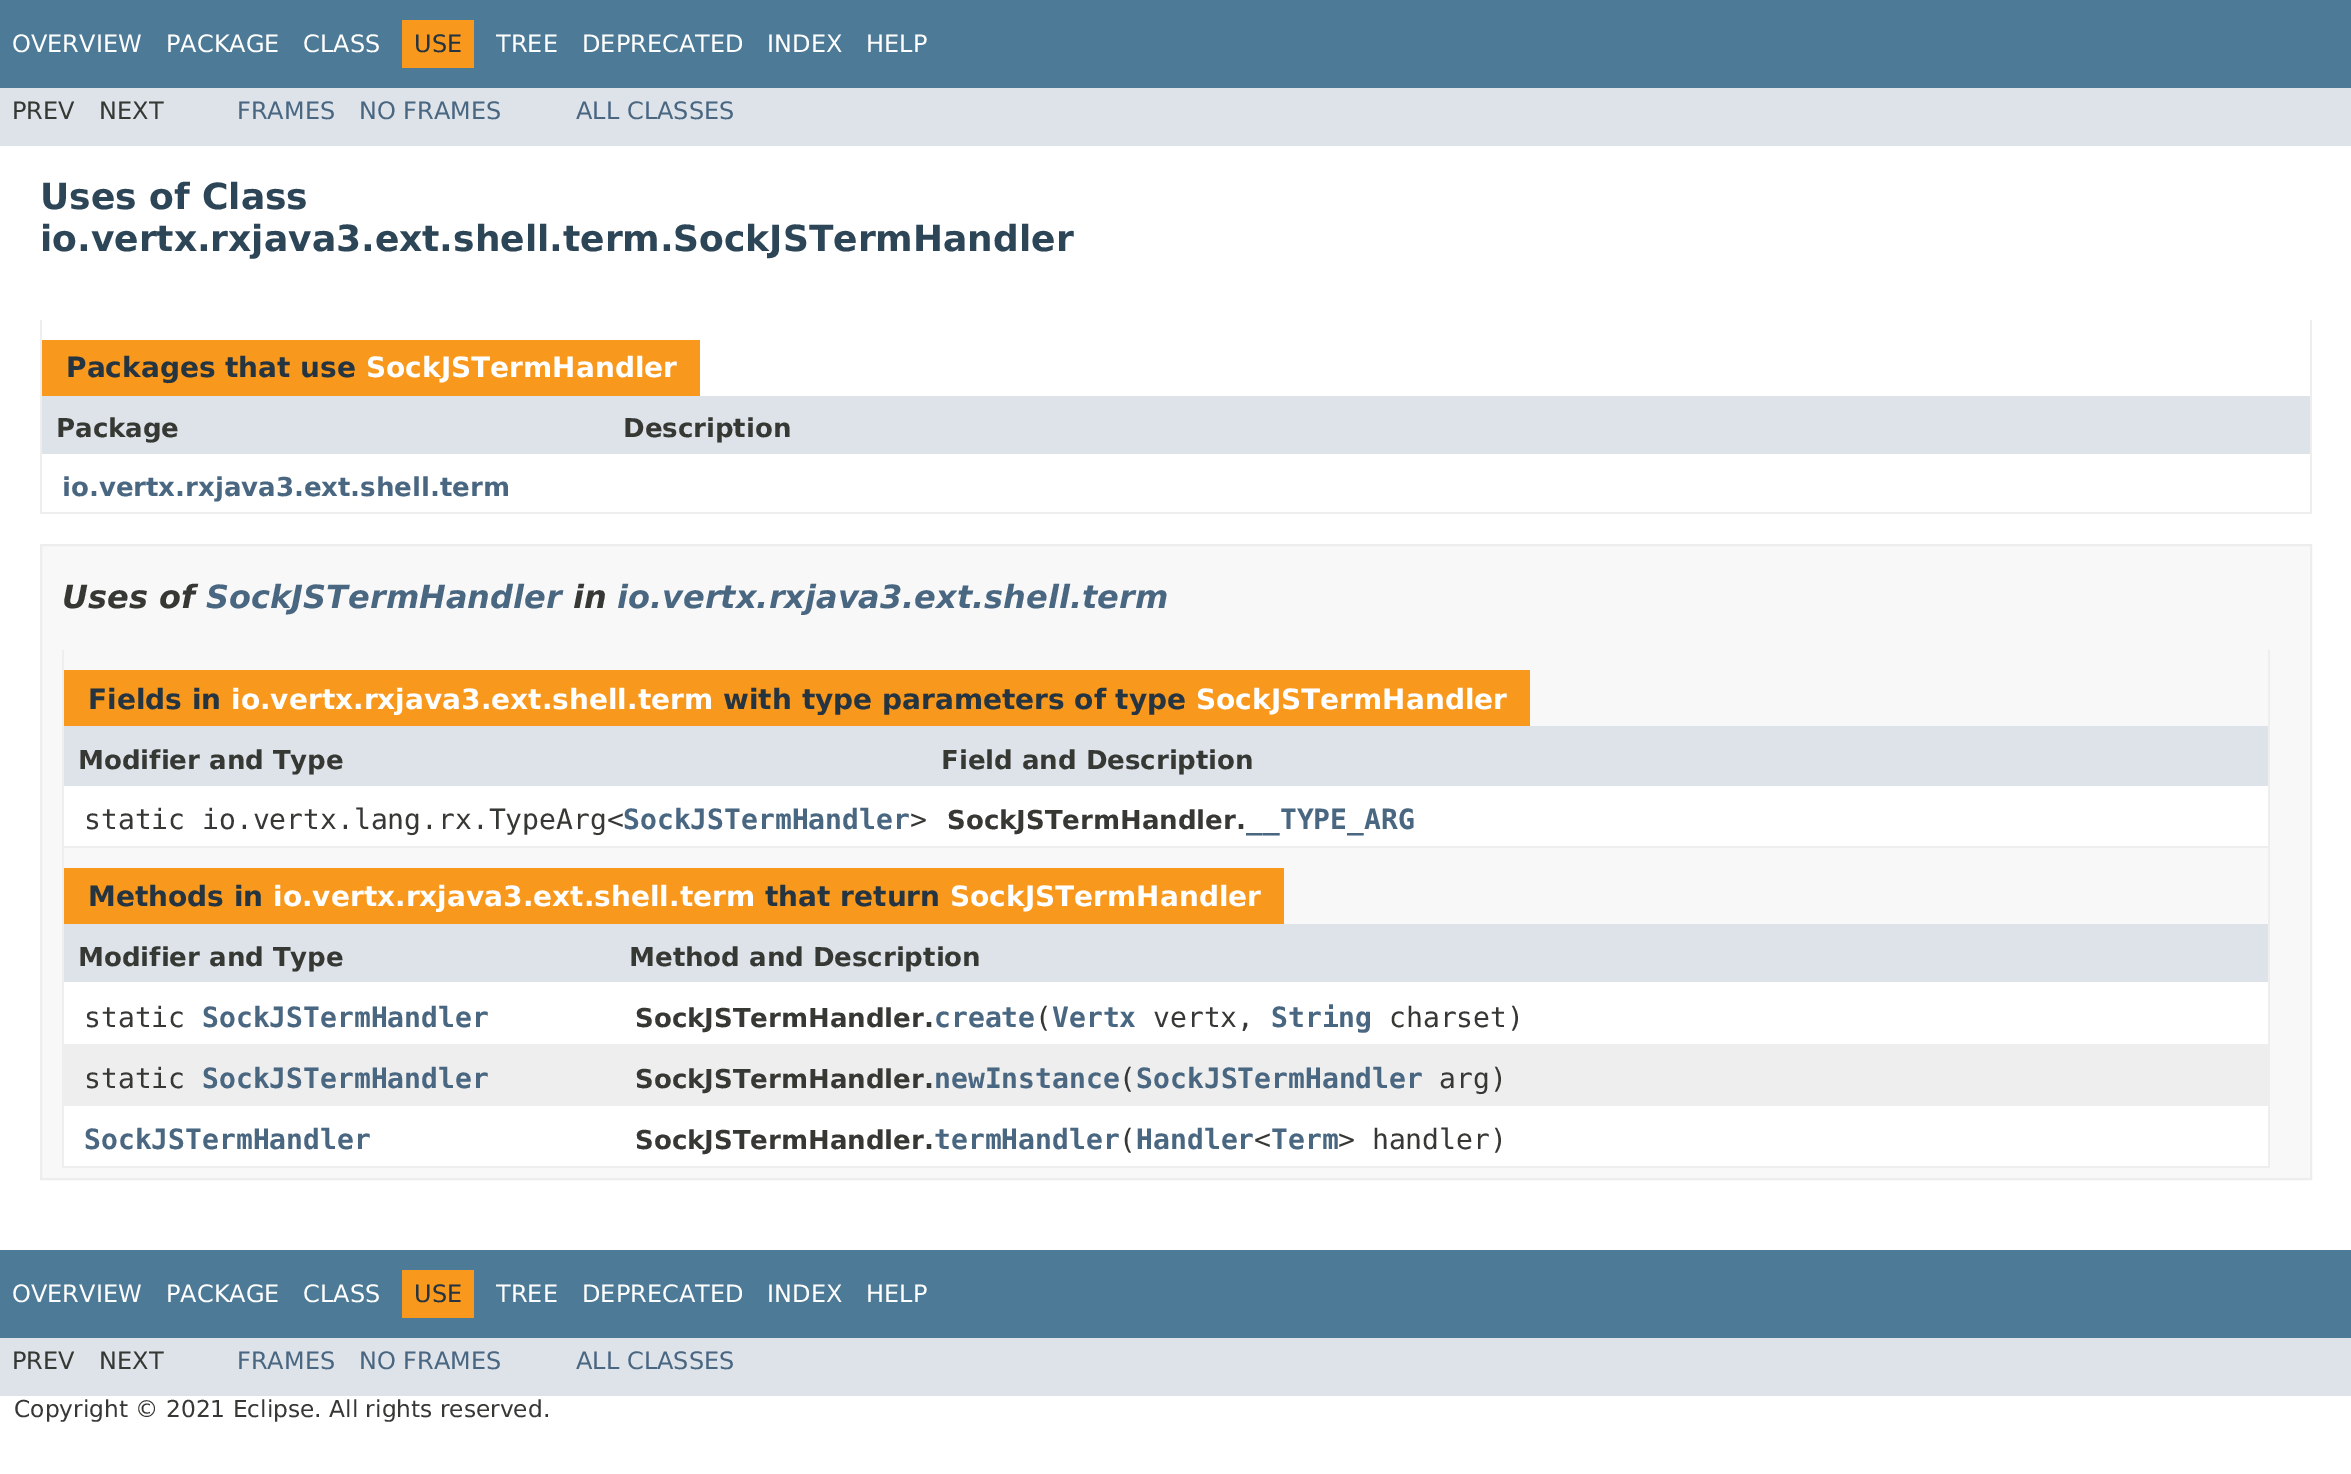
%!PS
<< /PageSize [2351 1474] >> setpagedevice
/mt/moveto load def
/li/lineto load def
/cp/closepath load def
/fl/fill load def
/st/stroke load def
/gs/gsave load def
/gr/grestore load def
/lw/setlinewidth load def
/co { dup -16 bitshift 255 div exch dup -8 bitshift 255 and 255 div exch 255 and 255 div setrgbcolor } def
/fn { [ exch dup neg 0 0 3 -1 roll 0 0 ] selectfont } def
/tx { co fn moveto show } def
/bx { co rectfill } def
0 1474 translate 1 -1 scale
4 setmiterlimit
0 0 2351 1474 16#FFFFFF bx
0 0 2351 88 16#4D7A97 bx
402 20 72 48 16#F8981D bx
0 88 2351 58 16#DEE3E9 bx
2310 320 2 194 16#EEEEEE bx
40 512 2272 2 16#EEEEEE bx
40 320 2 194 16#EEEEEE bx
42 340 658 56 16#F8981D bx
42 396 2268 58 16#DEE3E9 bx
16#F8F8F8 co
41 545 mt 2311 545 li 2311 1179 li 41 1179 li cp gs fl gr
16#EDEDED co
2 lw
st
2268 650 2 518 16#EEEEEE bx
62 846 2208 2 16#EEEEEE bx
62 650 2 198 16#EEEEEE bx
64 670 1466 56 16#F8981D bx
64 726 2204 60 16#DEE3E9 bx
64 786 2204 60 16#FFFFFF bx
62 1166 2208 2 16#EEEEEE bx
62 848 2 320 16#EEEEEE bx
64 868 1220 56 16#F8981D bx
64 924 2204 58 16#DEE3E9 bx
64 982 2204 62 16#FFFFFF bx
64 1044 2204 62 16#EEEEEF bx
64 1106 2204 60 16#FFFFFF bx
0 1250 2351 88 16#4D7A97 bx
402 1270 72 48 16#F8981D bx
0 1338 2351 58 16#DEE3E9 bx
(OVERVIEW) 12 52 /DejaVuSans-Regular 24 16#FFFFFF tx
(PACKAGE) 166 52 /DejaVuSans-Regular 24 16#FFFFFF tx
(CLASS) 303 52 /DejaVuSans-Regular 24 16#FFFFFF tx
(USE) 414 52 /DejaVuSans-Regular 24 16#253441 tx
(TREE) 496 52 /DejaVuSans-Regular 24 16#FFFFFF tx
(DEPRECATED) 582 52 /DejaVuSans-Regular 24 16#FFFFFF tx
(INDEX) 767 52 /DejaVuSans-Regular 24 16#FFFFFF tx
(HELP) 866 52 /DejaVuSans-Regular 24 16#FFFFFF tx
(PREV) 12 119 /DejaVuSans-Regular 24 16#353833 tx
(NEXT) 99 119 /DejaVuSans-Regular 24 16#353833 tx
(FRAMES) 237 119 /DejaVuSans-Regular 24 16#4A6782 tx
(NO FRAMES) 359 119 /DejaVuSans-Regular 24 16#4A6782 tx
(ALL CLASSES) 576 119 /DejaVuSans-Regular 24 16#4A6782 tx
(Uses of Class) 40 209 /DejaVuSans-Bold 36 16#2C4557 tx
(io.vertx.rxjava3.ext.shell.term.SockJSTermHandler) 40 251 /DejaVuSans-Bold 36 16#2C4557 tx
(Packages that use) 66 377 /DejaVuSans-Bold 28 16#253441 tx
(SockJSTermHandler) 366 377 /DejaVuSans-Bold 28 16#FFFFFF tx
(Package) 56 437 /DejaVuSans-Bold 26 16#353833 tx
(Description) 623 437 /DejaVuSans-Bold 26 16#353833 tx
(io.vertx.rxjava3.ext.shell.term) 62 496 /DejaVuSans-Bold 26 16#4A6782 tx
(Uses of) 62 608 /DejaVuSans-BoldItalic 32 16#353833 tx
(SockJSTermHandler) 206 608 /DejaVuSans-BoldItalic 32 16#4A6782 tx
(in) 573 608 /DejaVuSans-BoldItalic 32 16#353833 tx
(io.vertx.rxjava3.ext.shell.term) 617 608 /DejaVuSans-BoldItalic 32 16#4A6782 tx
(Fields in) 88 709 /DejaVuSans-Bold 28 16#253441 tx
(io.vertx.rxjava3.ext.shell.term) 231 709 /DejaVuSans-Bold 28 16#FFFFFF tx
(with type parameters of type) 723 709 /DejaVuSans-Bold 28 16#253441 tx
(SockJSTermHandler) 1196 709 /DejaVuSans-Bold 28 16#FFFFFF tx
(Modifier and Type) 78 769 /DejaVuSans-Bold 26 16#353833 tx
(Field and Description) 941 769 /DejaVuSans-Bold 26 16#353833 tx
(static io.vertx.lang.rx.TypeArg<) 84 829 /DejaVuSansMono-Regular 28 16#353833 tx
(SockJSTermHandler) 623 829 /DejaVuSansMono-Bold 28 16#4A6782 tx
(>) 910 829 /DejaVuSansMono-Regular 28 16#353833 tx
(SockJSTermHandler.) 947 829 /DejaVuSans-Bold 26 16#353833 tx
(__TYPE_ARG) 1246 829 /DejaVuSansMono-Bold 28 16#4A6782 tx
(Methods in) 88 906 /DejaVuSans-Bold 28 16#253441 tx
(io.vertx.rxjava3.ext.shell.term) 273 906 /DejaVuSans-Bold 28 16#FFFFFF tx
(that return) 765 906 /DejaVuSans-Bold 28 16#253441 tx
(SockJSTermHandler) 950 906 /DejaVuSans-Bold 28 16#FFFFFF tx
(Modifier and Type) 78 966 /DejaVuSans-Bold 26 16#353833 tx
(Method and Description) 629 966 /DejaVuSans-Bold 26 16#353833 tx
(static) 84 1027 /DejaVuSansMono-Regular 28 16#353833 tx
(SockJSTermHandler) 202 1027 /DejaVuSansMono-Bold 28 16#4A6782 tx
(String) 1271 1027 /DejaVuSansMono-Bold 28 16#4A6782 tx
(charset\)) 1389 1027 /DejaVuSansMono-Regular 28 16#353833 tx
(SockJSTermHandler.) 635 1027 /DejaVuSans-Bold 26 16#353833 tx
(create Vertx) 934 1027 /DejaVuSansMono-Bold 28 16#4A6782 tx
(\() 1035 1027 /DejaVuSansMono-Regular 28 16#353833 tx
(vertx,) 1153 1027 /DejaVuSansMono-Regular 28 16#353833 tx
(static) 84 1088 /DejaVuSansMono-Regular 28 16#353833 tx
(SockJSTermHandler) 202 1088 /DejaVuSansMono-Bold 28 16#4A6782 tx
(newInstance SockJSTermHandler) 934 1088 /DejaVuSansMono-Bold 28 16#4A6782 tx
(SockJSTermHandler.) 635 1088 /DejaVuSans-Bold 26 16#353833 tx
(\() 1119 1088 /DejaVuSansMono-Regular 28 16#353833 tx
(arg\)) 1439 1088 /DejaVuSansMono-Regular 28 16#353833 tx
(SockJSTermHandler) 84 1149 /DejaVuSansMono-Bold 28 16#4A6782 tx
(termHandler Handler Term) 934 1149 /DejaVuSansMono-Bold 28 16#4A6782 tx
(SockJSTermHandler.) 635 1149 /DejaVuSans-Bold 26 16#353833 tx
(\() 1119 1149 /DejaVuSansMono-Regular 28 16#353833 tx
(<) 1254 1149 /DejaVuSansMono-Regular 28 16#353833 tx
(> handler\)) 1338 1149 /DejaVuSansMono-Regular 28 16#353833 tx
(OVERVIEW) 12 1302 /DejaVuSans-Regular 24 16#FFFFFF tx
(PACKAGE) 166 1302 /DejaVuSans-Regular 24 16#FFFFFF tx
(CLASS) 303 1302 /DejaVuSans-Regular 24 16#FFFFFF tx
(USE) 414 1302 /DejaVuSans-Regular 24 16#253441 tx
(TREE) 496 1302 /DejaVuSans-Regular 24 16#FFFFFF tx
(DEPRECATED) 582 1302 /DejaVuSans-Regular 24 16#FFFFFF tx
(INDEX) 767 1302 /DejaVuSans-Regular 24 16#FFFFFF tx
(HELP) 866 1302 /DejaVuSans-Regular 24 16#FFFFFF tx
(PREV) 12 1369 /DejaVuSans-Regular 24 16#353833 tx
(NEXT) 99 1369 /DejaVuSans-Regular 24 16#353833 tx
(FRAMES) 237 1369 /DejaVuSans-Regular 24 16#4A6782 tx
(NO FRAMES) 359 1369 /DejaVuSans-Regular 24 16#4A6782 tx
(ALL CLASSES) 576 1369 /DejaVuSans-Regular 24 16#4A6782 tx
(Copyright © 2021 Eclipse. All rights reserved.) 14 1417 /DejaVuSans-Regular 23.3 16#353833 tx
showpage
